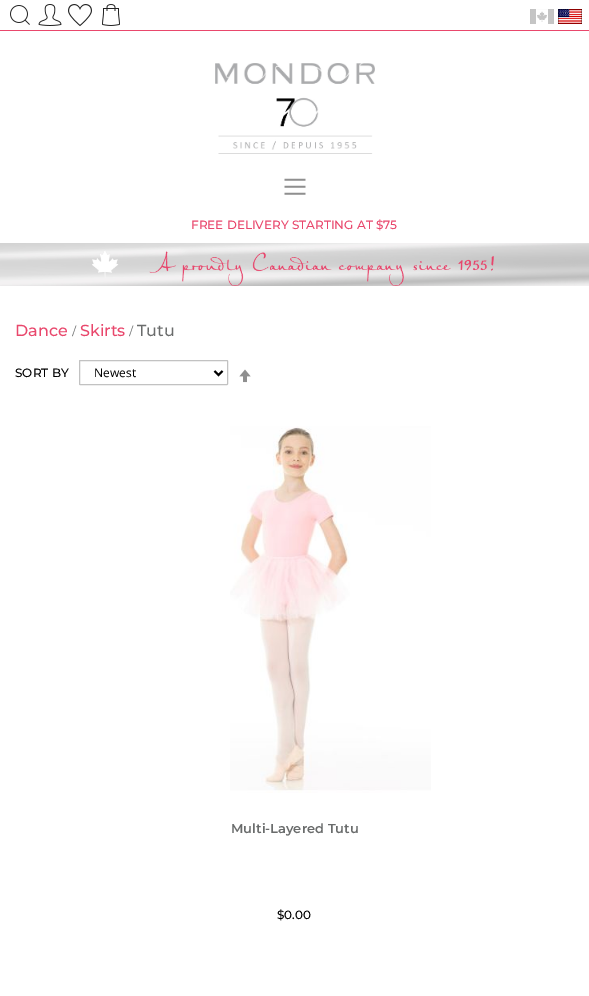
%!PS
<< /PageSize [589 996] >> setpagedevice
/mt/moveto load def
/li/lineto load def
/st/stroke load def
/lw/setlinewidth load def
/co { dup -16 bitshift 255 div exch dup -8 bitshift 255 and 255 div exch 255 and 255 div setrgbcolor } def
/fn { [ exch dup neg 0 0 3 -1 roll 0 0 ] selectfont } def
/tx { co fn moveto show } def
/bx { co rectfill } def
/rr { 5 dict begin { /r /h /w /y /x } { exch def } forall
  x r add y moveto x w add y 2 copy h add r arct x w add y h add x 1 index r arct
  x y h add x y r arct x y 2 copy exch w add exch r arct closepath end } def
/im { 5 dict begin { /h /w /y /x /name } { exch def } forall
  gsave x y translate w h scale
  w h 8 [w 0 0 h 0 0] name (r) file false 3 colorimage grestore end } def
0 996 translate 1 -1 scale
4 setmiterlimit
0 0 589 996 16#FFFFFF bx
0 30 589 1 16#E9476C bx
(media/1.raw) 10 5 20 20 im
(media/2.raw) 38 4 24 22 im
(media/3.raw) 68 4 24 23 im
(media/4.raw) 102 4 18 22 im
(media/5.raw) 530 9 24 15 im
(media/6.raw) 558 9 24 15 im
(media/7.raw) 215 63 160 91 im
(media/8.raw) 284 178 22 17 im
(media/9.raw) 0 243 589 43 im
16#C2C2C2 co
79.5 360.5 148 24 .5 rr st
16#000000 co
2 lw
214.5 371 mt 218.5 375 li 222.5 371 li st
(media/10.raw) 239 369 12 14 im
(media/11.raw) 230 426 201 367 im
(FREE DELIVERY STARTING AT $75) 191 229 /Montserrat-Medium 12 16#E9476C tx
(Dance) 15 336 /Montserrat-Medium 16 16#E9476C tx
(/) 72 336 /LiberationSerif-Regular 16 16#6A6C6C tx
(Skirts) 80 336 /Montserrat-Medium 16 16#E9476C tx
(/) 129 336 /LiberationSerif-Regular 16 16#6A6C6C tx
(Tutu) 137 336 /Montserrat-Medium 16 16#6A6C6C tx
(SORT BY) 15 377 /Montserrat-Medium 12 16#000000 tx
(Newest) 94 377 /OpenSans-Regular 12 16#000000 tx
(Multi-Layered Tutu) 231 833 /Montserrat-SemiBold 13 16#6A6C6C tx
($0.00) 277 919 /Montserrat-Medium 12 16#000000 tx
showpage
